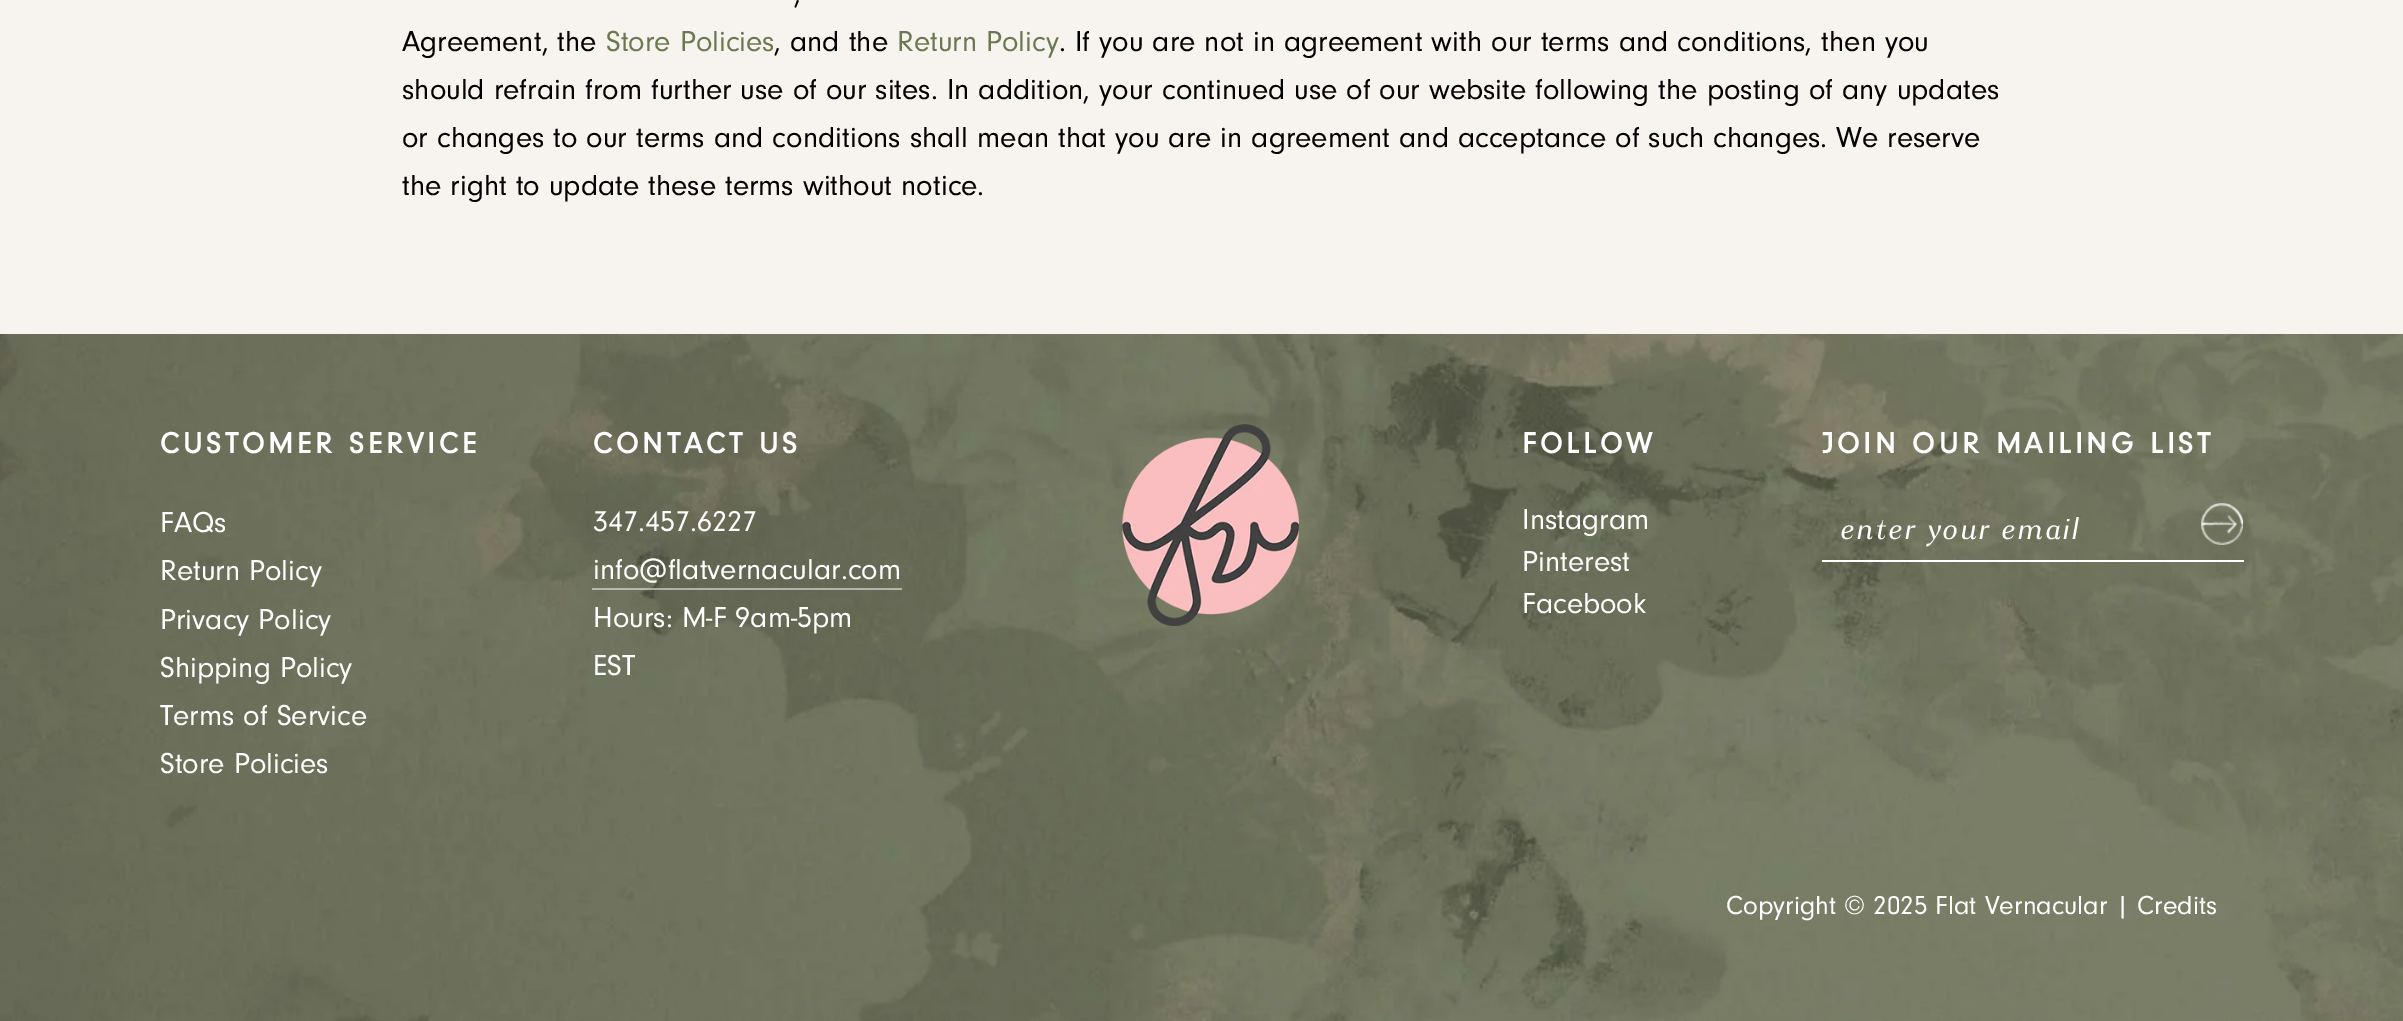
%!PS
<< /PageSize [2403 1021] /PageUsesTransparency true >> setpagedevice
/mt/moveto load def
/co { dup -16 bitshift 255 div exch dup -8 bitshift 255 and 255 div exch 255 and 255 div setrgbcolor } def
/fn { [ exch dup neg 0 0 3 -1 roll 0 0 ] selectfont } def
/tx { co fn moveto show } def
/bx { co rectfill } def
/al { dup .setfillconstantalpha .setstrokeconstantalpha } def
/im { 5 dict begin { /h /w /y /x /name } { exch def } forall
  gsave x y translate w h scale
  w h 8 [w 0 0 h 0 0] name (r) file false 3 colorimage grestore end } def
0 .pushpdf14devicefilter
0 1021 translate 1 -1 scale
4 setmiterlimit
0 0 2403 1021 16#F7F4EF bx
(media/1.raw) 0 334 2403 687 im
0.5 al
592 588 310 2 16#FFFFFF bx
1 al
(media/2.raw) 1122 424 177 202 im
1822 560 422 2 16#FFFFFF bx
(media/3.raw) 2201 503 42 42 im
(,) 794 3 /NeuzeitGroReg-Regular 30 16#000000 tx
(Agreement, the) 402 51 /NeuzeitGroReg-Regular 30 16#000000 tx
(Store Policies) 606 51 /NeuzeitGroReg-Regular 30 16#6A7951 tx
(, and the) 774 51 /NeuzeitGroReg-Regular 30 16#000000 tx
(Return Policy) 897 51 /NeuzeitGroReg-Regular 30 16#6A7951 tx
(. If you are not in agreement with our terms and conditions, then you) 1059 51 /NeuzeitGroReg-Regular 30 16#000000 tx
(should refrain from further use of our sites. In addition, your continued use of our website following the posting of any updates) 402 99 /NeuzeitGroReg-Regular 30 16#000000 tx
(or changes to our terms and conditions shall mean that you are in agreement and acceptance of such changes. We reserve) 402 147 /NeuzeitGroReg-Regular 30 16#000000 tx
(the right to update these terms without notice.) 402 195 /NeuzeitGroReg-Regular 30 16#000000 tx
/NeuzeitGroReg-Bold 30 fn
16#FFFFFF co
160 453 mt 4 0 (CUSTOMER SERVICE) ashow
(FAQs) 160 532 /NeuzeitGroReg-Regular 30 16#FFFFFF tx
(Return Policy) 160 580 /NeuzeitGroReg-Regular 30 16#FFFFFF tx
(Privacy Policy) 160 629 /NeuzeitGroReg-Regular 30 16#FFFFFF tx
(Shipping Policy) 160 677 /NeuzeitGroReg-Regular 30 16#FFFFFF tx
(Terms of Service) 160 725 /NeuzeitGroReg-Regular 30 16#FFFFFF tx
(Store Policies) 160 773 /NeuzeitGroReg-Regular 30 16#FFFFFF tx
/NeuzeitGroReg-Bold 30 fn
593 453 mt 4 0 (CONTACT US) ashow
(347.457.6227) 593 531 /NeuzeitGroReg-Regular 30 16#FFFFFF tx
(info@flatvernacular.com) 593 579 /NeuzeitGroReg-Regular 30 16#FFFFFF tx
(Hours: M-F 9am-5pm) 593 627 /NeuzeitGroReg-Regular 30 16#FFFFFF tx
(EST) 593 675 /NeuzeitGroReg-Regular 30 16#FFFFFF tx
/NeuzeitGroReg-Bold 30 fn
1522 453 mt 4 0 (FOLLOW) ashow
(Instagram) 1522 529 /NeuzeitGroReg-Regular 30 16#FFFFFF tx
(Pinterest) 1522 571 /NeuzeitGroReg-Regular 30 16#FFFFFF tx
(Facebook) 1522 613 /NeuzeitGroReg-Regular 30 16#FFFFFF tx
/NeuzeitGroReg-Bold 30 fn
1822 453 mt 4 0 (JOIN OUR MAILING LIST) ashow
/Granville-MediumItalic 30 fn
1841 539 mt 2 0 (enter your email) ashow
(Copyright © 2025 Flat Vernacular | Credits) 1726 914 /NeuzeitGroReg-Regular 27 16#FFFFFF tx
.poppdf14devicefilter showpage
